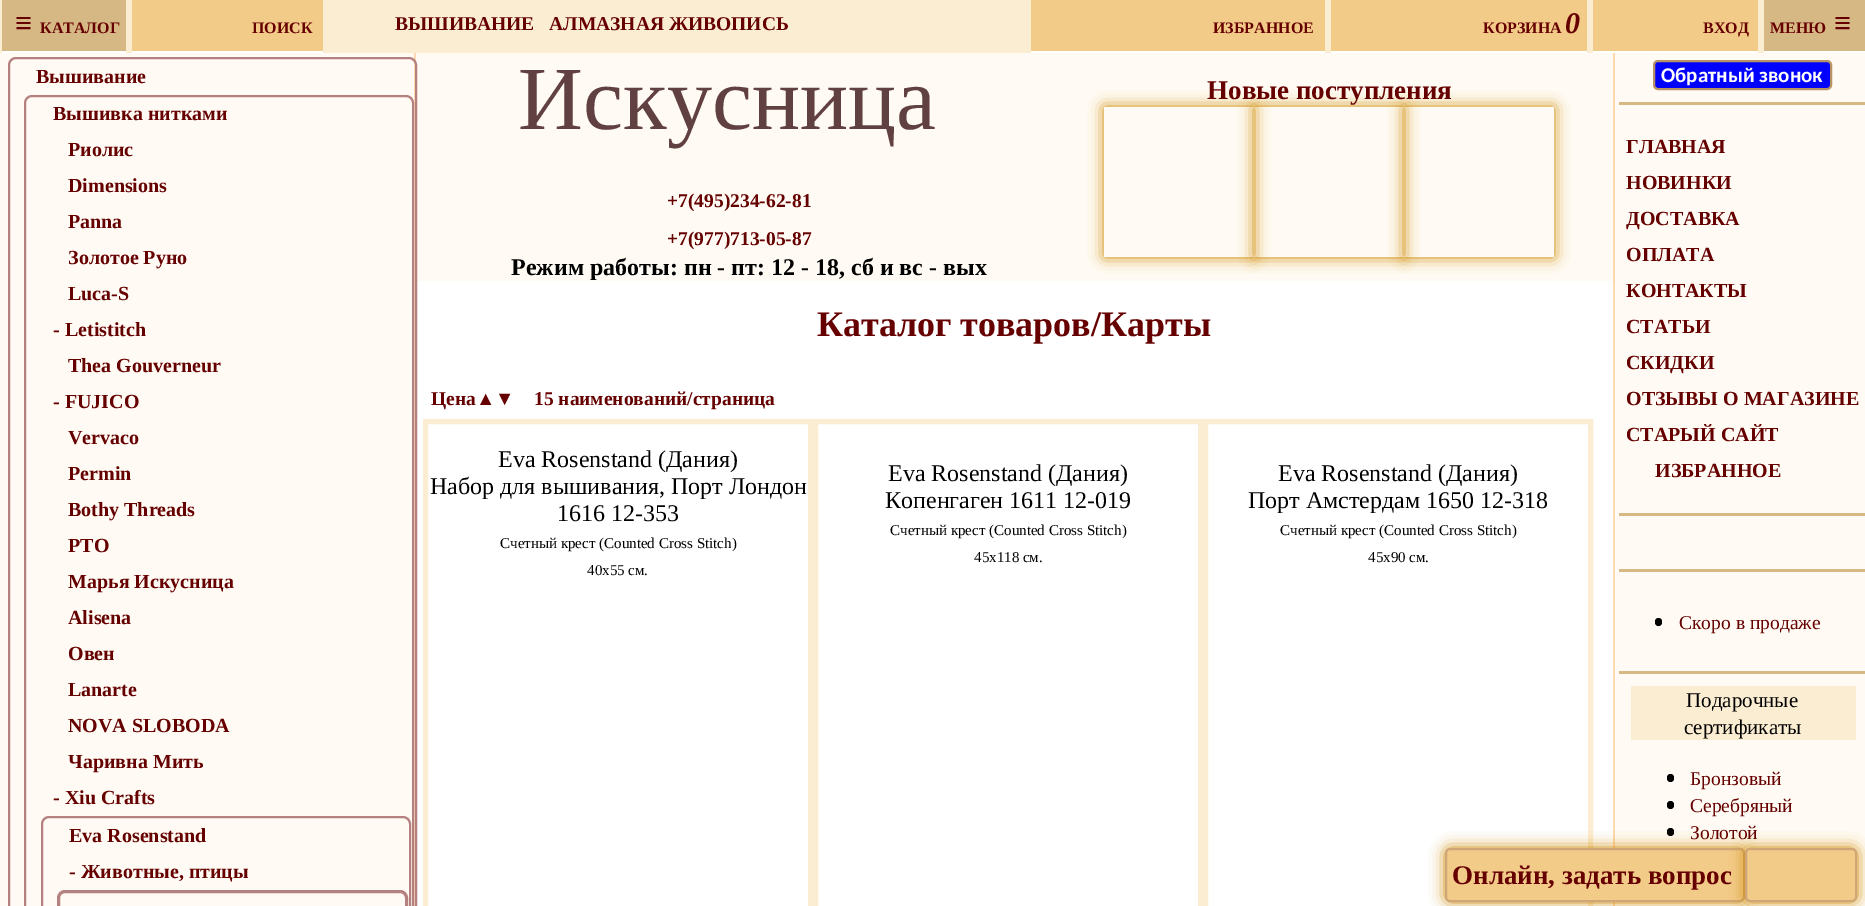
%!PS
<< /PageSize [1865 906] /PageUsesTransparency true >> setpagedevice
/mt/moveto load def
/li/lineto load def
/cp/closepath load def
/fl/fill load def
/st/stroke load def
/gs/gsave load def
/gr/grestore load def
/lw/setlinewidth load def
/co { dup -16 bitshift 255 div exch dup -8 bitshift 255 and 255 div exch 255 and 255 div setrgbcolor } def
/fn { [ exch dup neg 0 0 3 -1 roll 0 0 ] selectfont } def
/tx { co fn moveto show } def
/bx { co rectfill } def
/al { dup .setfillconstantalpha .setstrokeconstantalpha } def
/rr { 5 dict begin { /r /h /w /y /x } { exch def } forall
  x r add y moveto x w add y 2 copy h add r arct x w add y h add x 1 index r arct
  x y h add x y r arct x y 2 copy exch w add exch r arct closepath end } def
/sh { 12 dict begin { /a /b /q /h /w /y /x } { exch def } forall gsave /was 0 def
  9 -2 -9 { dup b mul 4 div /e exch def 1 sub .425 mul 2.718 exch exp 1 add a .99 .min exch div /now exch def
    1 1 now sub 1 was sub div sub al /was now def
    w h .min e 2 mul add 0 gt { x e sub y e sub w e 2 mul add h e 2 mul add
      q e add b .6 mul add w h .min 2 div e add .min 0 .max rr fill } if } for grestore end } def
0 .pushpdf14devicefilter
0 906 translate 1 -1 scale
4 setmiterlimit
0 0 1865 906 16#FFFFFF bx
0 0 1764 53 16#FBEDD2 bx
2 0 124 51 16#D6B885 bx
2 51 124 2 16#FFFFFF bx
132 0 191 51 16#F2CB89 bx
132 51 191 2 16#FFFFFF bx
1031 0 294 51 16#F2CB89 bx
1031 51 294 2 16#FFFFFF bx
1331 0 256 51 16#F2CB89 bx
1331 51 256 2 16#FFFFFF bx
1593 0 165 51 16#F2CB89 bx
1593 51 165 2 16#FFFFFF bx
1764 0 101 51 16#D6B885 bx
0 53 414 853 16#FFFBF4 bx
414 53 2 853 16#FFDAB0 bx
416 53 1197 228 16#FFFBF4 bx
16#B48080 co
2 lw
9 58 407 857 7 rr st
25 96 388 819 7 rr st
42 817 368 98 7 rr st
3 lw
58.5 891.5 348 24 6.5 rr st
gs
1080 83 mt 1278 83 li 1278 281 li 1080 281 li cp 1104 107 mt 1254 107 li 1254 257 li 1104 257 li cp eoclip newpath
16#CC8800 co
1104 107 150 150 0 7.5 1 sh
gr
gs
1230 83 mt 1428 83 li 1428 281 li 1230 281 li cp 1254 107 mt 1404 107 li 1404 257 li 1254 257 li cp eoclip newpath
16#CC8800 co
1254 107 150 150 0 7.5 1 sh
gr
gs
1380 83 mt 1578 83 li 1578 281 li 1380 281 li cp 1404 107 mt 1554 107 li 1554 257 li 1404 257 li cp eoclip newpath
16#CC8800 co
1404 107 150 150 0 7.5 1 sh
gr
16#FBEDD2 co
5 lw
425.5 421.5 385 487 rectstroke
815.5 421.5 385 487 rectstroke
1205.5 421.5 385 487 rectstroke
1615 53 250 853 16#FFFBF4 bx
1613 53 2 853 16#FFDAB0 bx
16#000000 co
1667 828 7 8 3.5 rr fl
16#CC8800 co
1445 848 300 54 5 7.5 1 sh
16#F2CB89 co
1446 849 298 52 4 rr gs fl gr
16#D1A676 co
2 lw
st
16#CC8800 co
1745 848 112 54 5 7.5 1 sh
16#F2CB89 co
1746 849 110 52 4 rr gs fl gr
16#D1A676 co
st
16#0000FF co
1654 61 177 28 4 rr gs fl gr
16#B79265 co
st
1619 102 246 3 16#D6B885 bx
1619 513 246 3 16#D6B885 bx
1619 569 246 3 16#D6B885 bx
16#000000 co
1655 618 7 8 3.5 rr fl
1619 671 246 3 16#D6B885 bx
1631 686 225 54 16#FBEDD2 bx
16#000000 co
1667 774 7 8 3.5 rr fl
1667 801 7 8 3.5 rr fl
(≡) 15 33 /LiberationSerif-Bold 30 16#660000 tx
(КАТАЛОГ) 40 33 /LiberationSerif-Bold 16 16#660000 tx
(ПОИСК) 252 33 /LiberationSerif-Bold 16 16#660000 tx
(ВЫШИВАНИЕ) 395 30 /LiberationSerif-Bold 19.5 16#660000 tx
(АЛМАЗНАЯ ЖИВОПИСЬ) 549 30 /LiberationSerif-Bold 19.5 16#660000 tx
(ИЗБРАННОЕ) 1213 33 /LiberationSerif-Bold 16 16#660000 tx
(КОРЗИНА) 1483 33 /LiberationSerif-Bold 16 16#660000 tx
(0) 1565 33 /LiberationSerif-BoldItalic 30 16#660000 tx
(ВХОД) 1703 33 /LiberationSerif-Bold 16 16#660000 tx
(МЕНЮ) 1770 33 /LiberationSerif-Bold 16 16#660000 tx
(≡) 1834 33 /LiberationSerif-Bold 30 16#660000 tx
(Вышивание) 36 83 /LiberationSerif-Bold 20 16#660000 tx
(Вышивка нитками) 53 120 /LiberationSerif-Bold 20 16#660000 tx
(Риолис) 68 156 /LiberationSerif-Bold 20 16#660000 tx
(Dimensions) 68 192 /LiberationSerif-Bold 20 16#660000 tx
(Panna) 68 228 /LiberationSerif-Bold 20 16#660000 tx
(Золотое Руно) 68 264 /LiberationSerif-Bold 20 16#660000 tx
(Luca-S) 68 300 /LiberationSerif-Bold 20 16#660000 tx
(- Letistitch) 53 336 /LiberationSerif-Bold 20 16#660000 tx
(Thea Gouverneur) 68 372 /LiberationSerif-Bold 20 16#660000 tx
(- FUJICO) 53 408 /LiberationSerif-Bold 20 16#660000 tx
(Vervaco) 68 444 /LiberationSerif-Bold 20 16#660000 tx
(Permin) 68 480 /LiberationSerif-Bold 20 16#660000 tx
(Bothy Threads) 68 516 /LiberationSerif-Bold 20 16#660000 tx
(РТО) 68 552 /LiberationSerif-Bold 20 16#660000 tx
(Марья Искусница) 68 588 /LiberationSerif-Bold 20 16#660000 tx
(Alisena) 68 624 /LiberationSerif-Bold 20 16#660000 tx
(Овен) 68 660 /LiberationSerif-Bold 20 16#660000 tx
(Lanarte) 68 696 /LiberationSerif-Bold 20 16#660000 tx
(NOVA SLOBODA) 68 732 /LiberationSerif-Bold 20 16#660000 tx
(Чаривна Мить) 68 768 /LiberationSerif-Bold 20 16#660000 tx
(- Xiu Crafts) 53 804 /LiberationSerif-Bold 20 16#660000 tx
(Eva Rosenstand) 69 842 /LiberationSerif-Bold 20 16#660000 tx
(- Животные, птицы) 69 878 /LiberationSerif-Bold 20 16#660000 tx
(Искусница) 518 129 /LiberationSerif-Regular 90 16#604040 tx
(+7\(495\)234-62-81) 667 207 /LiberationSerif-Bold 19.5 16#660000 tx
(+7\(977\)713-05-87) 667 245 /LiberationSerif-Bold 19.5 16#660000 tx
(Режим работы: пн - пт: 12 - 18, сб и вс - вых) 511 275 /LiberationSerif-Bold 24 16#000000 tx
(Новые поступления) 1207 99 /LiberationSerif-Bold 27 16#660000 tx
(Каталог товаров/Карты) 817 336 /LiberationSerif-Bold 36 16#660000 tx
(Цена▲▼    15 наименований/страница) 431 405 /LiberationSerif-Bold 19.5 16#660000 tx
(Eva Rosenstand \(Дания\)) 498 467 /LiberationSerif-Regular 24 16#000000 tx
(Набор для вышивания, Порт Лондон) 430 494 /LiberationSerif-Regular 24 16#000000 tx
(1616 12-353) 557 521 /LiberationSerif-Regular 24 16#000000 tx
(Счетный крест \(Counted Cross Stitch\)) 500 548 /LiberationSerif-Regular 15 16#000000 tx
(40х55 см.) 587 575 /LiberationSerif-Regular 15 16#000000 tx
(Eva Rosenstand \(Дания\)) 888 481 /LiberationSerif-Regular 24 16#000000 tx
(Копенгаген 1611 12-019) 885 508 /LiberationSerif-Regular 24 16#000000 tx
(Счетный крест \(Counted Cross Stitch\)) 890 535 /LiberationSerif-Regular 15 16#000000 tx
(45x118 см.) 974 562 /LiberationSerif-Regular 15 16#000000 tx
(Eva Rosenstand \(Дания\)) 1278 481 /LiberationSerif-Regular 24 16#000000 tx
(Порт Амстердам 1650 12-318) 1248 508 /LiberationSerif-Regular 24 16#000000 tx
(Счетный крест \(Counted Cross Stitch\)) 1280 535 /LiberationSerif-Regular 15 16#000000 tx
(45х90 см.) 1368 562 /LiberationSerif-Regular 15 16#000000 tx
(Онлайн, задать вопрос) 1452 884 /LiberationSerif-Bold 27 16#660000 tx
(Обратный звонок) 1661 82 /Carlito-Bold 21 16#FFFFFF tx
(ГЛАВНАЯ) 1626 153 /LiberationSerif-Bold 20 16#660000 tx
(НОВИНКИ) 1626 189 /LiberationSerif-Bold 20 16#660000 tx
(ДОСТАВКА) 1626 225 /LiberationSerif-Bold 20 16#660000 tx
(ОПЛАТА) 1626 261 /LiberationSerif-Bold 20 16#660000 tx
(КОНТАКТЫ) 1626 297 /LiberationSerif-Bold 20 16#660000 tx
(СТАТЬИ) 1626 333 /LiberationSerif-Bold 20 16#660000 tx
(СКИДКИ) 1626 369 /LiberationSerif-Bold 20 16#660000 tx
(ОТЗЫВЫ О МАГАЗИНЕ) 1626 405 /LiberationSerif-Bold 20 16#660000 tx
(СТАРЫЙ САЙТ) 1626 441 /LiberationSerif-Bold 20 16#660000 tx
(ИЗБРАННОЕ) 1655 477 /LiberationSerif-Bold 20 16#660000 tx
(Скоро в продаже) 1679 629 /LiberationSerif-Regular 19.5 16#660000 tx
(Подарочные) 1686 707 /LiberationSerif-Regular 21 16#000000 tx
(сертификаты) 1684 734 /LiberationSerif-Regular 21 16#000000 tx
(Бронзовый) 1690 785 /LiberationSerif-Regular 19.5 16#660000 tx
(Серебряный) 1690 812 /LiberationSerif-Regular 19.5 16#660000 tx
(Золотой) 1690 839 /LiberationSerif-Regular 19.5 16#660000 tx
.poppdf14devicefilter showpage
